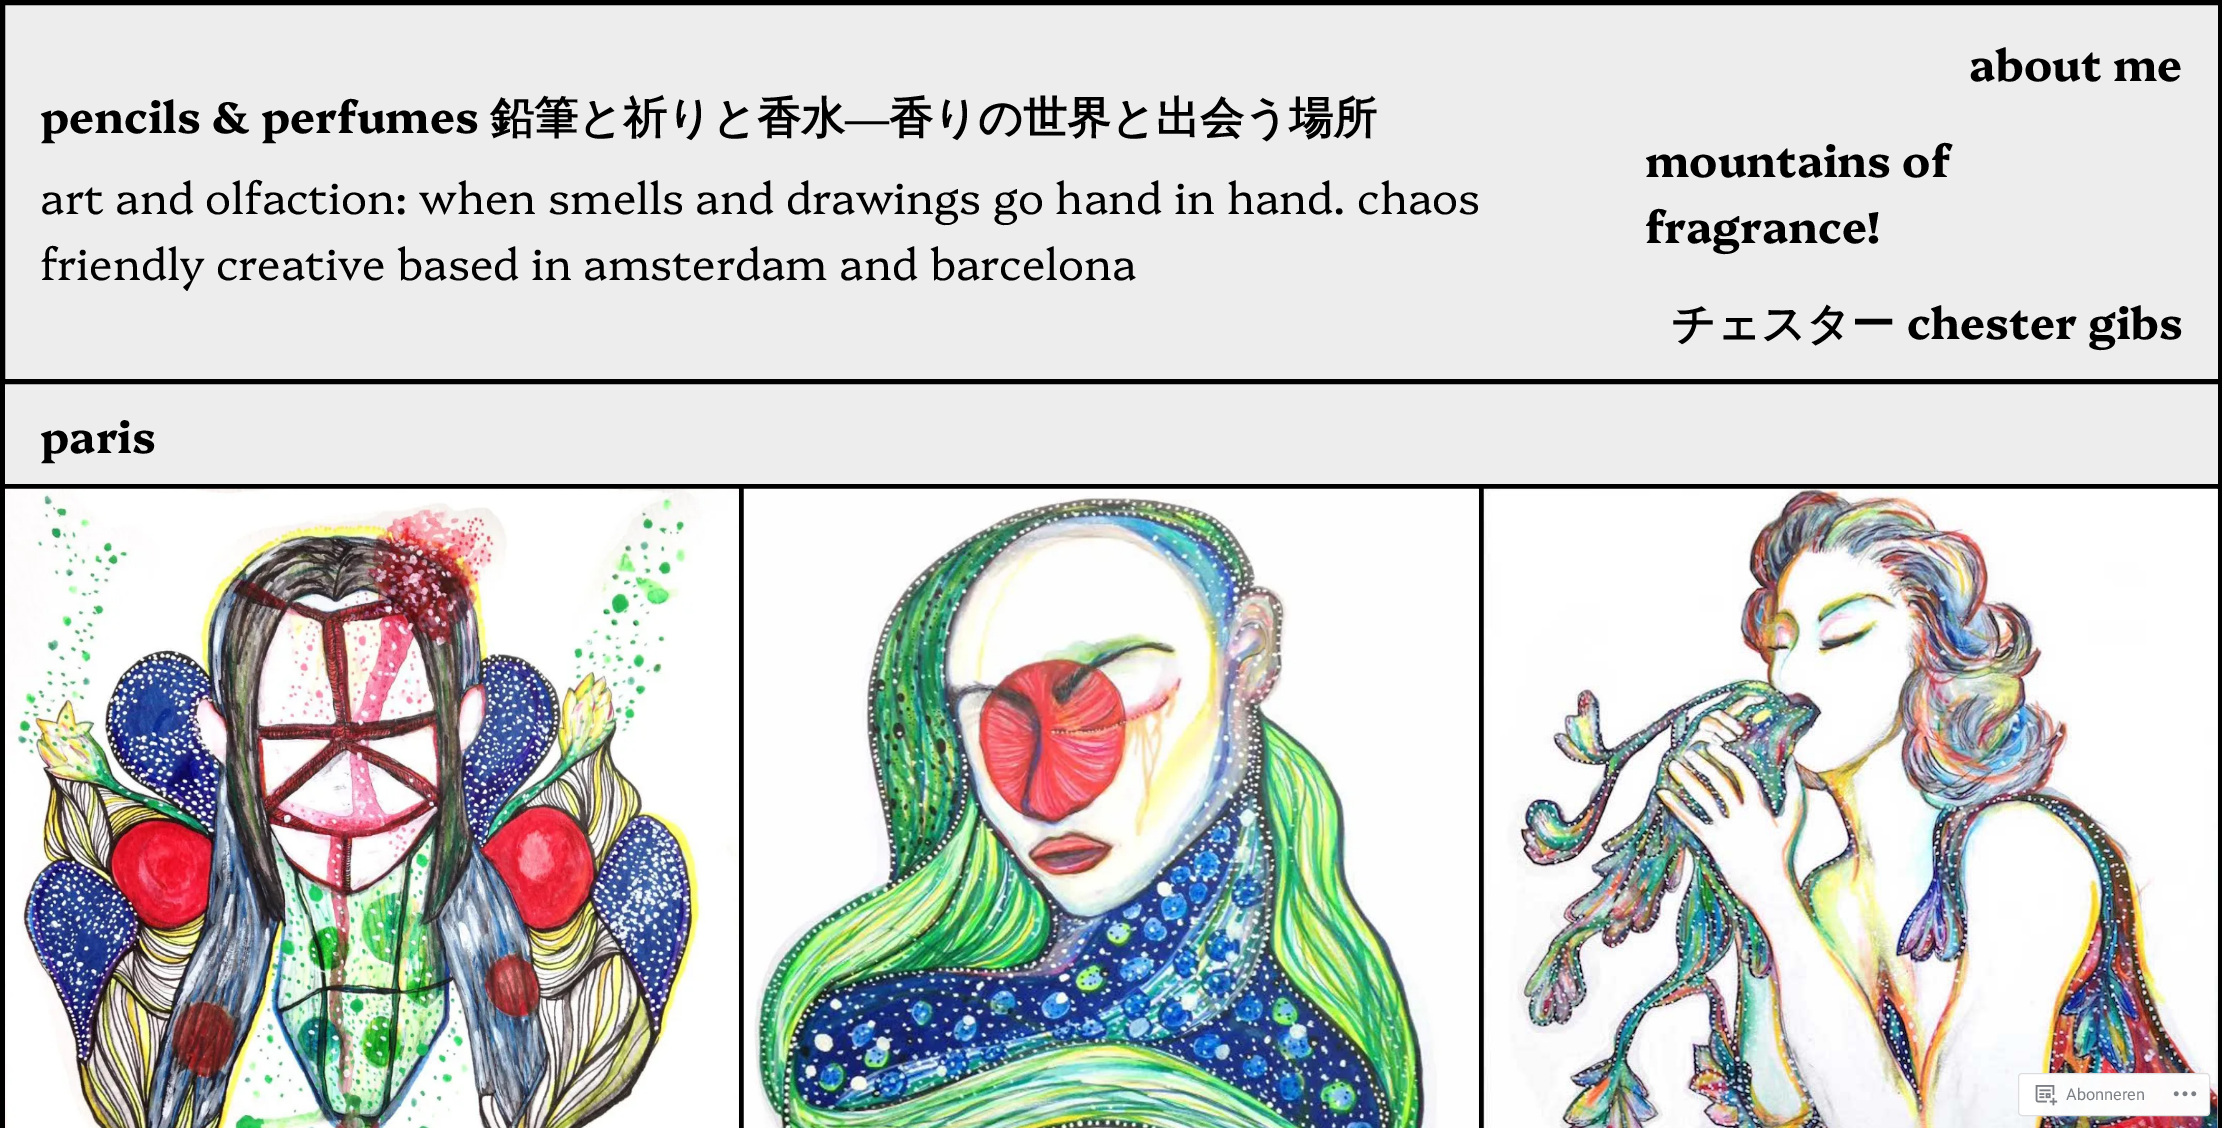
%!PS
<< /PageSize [2222 1128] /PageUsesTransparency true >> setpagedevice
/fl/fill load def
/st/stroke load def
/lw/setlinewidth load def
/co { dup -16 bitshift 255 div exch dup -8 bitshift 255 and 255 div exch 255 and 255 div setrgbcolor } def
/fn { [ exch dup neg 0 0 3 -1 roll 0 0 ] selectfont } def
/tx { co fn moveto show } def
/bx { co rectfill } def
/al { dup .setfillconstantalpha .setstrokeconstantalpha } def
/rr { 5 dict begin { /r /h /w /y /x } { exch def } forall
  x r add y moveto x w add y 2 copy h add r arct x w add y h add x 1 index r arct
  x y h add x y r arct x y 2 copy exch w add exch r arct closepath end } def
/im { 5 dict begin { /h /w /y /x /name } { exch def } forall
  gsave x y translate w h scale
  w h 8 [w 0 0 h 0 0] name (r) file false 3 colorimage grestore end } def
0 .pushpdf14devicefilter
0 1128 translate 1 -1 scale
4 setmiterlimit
0 0 2222 1128 16#EDEDED bx
16#000000 co
5 lw
2.5 2.5 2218 379 rectstroke
2218 384 4 105 16#000000 bx
0 484 2222 5 16#000000 bx
0 384 5 105 16#000000 bx
2218 486 4 642 16#000000 bx
0 486 6 642 16#000000 bx
(media/1.raw) 5 488 734 640 im
739 486 5 642 16#000000 bx
(media/2.raw) 743 488 736 640 im
1479 486 5 642 16#000000 bx
(media/3.raw) 1483 488 735 640 im
0.98 al
16#FFFFFF co
2018 1073 192 43 4 rr fl
16#DCDCDE co
1 lw
2018.5 1073.5 191 42 3.5 rr st
1 al
(media/4.raw) 2035 1085 23 21 im
(media/5.raw) 2173 1091 24 6 im
(pencils & perfumes) 40 133 /Platypi-Bold 44 16#000000 tx
(鉛筆と祈りと香水) 490 133 /WenQuanYiZenHei-Bold 44 16#000000 tx
(―) 845 133 /LiberationSerif-Bold 44 16#000000 tx
(香りの世界と出会う場所) 889 133 /WenQuanYiZenHei-Bold 44 16#000000 tx
(art and olfaction: when smells and drawings go hand in hand. chaos) 40 214 /Platypi-Light 44 16#000000 tx
(friendly creative based in amsterdam and barcelona) 40 280 /Platypi-Light 44 16#000000 tx
(about me) 1969 81 /Platypi-Bold 44 16#000000 tx
(mountains of) 1645 177 /Platypi-Bold 44 16#000000 tx
(fragrance!) 1645 243 /Platypi-Bold 44 16#000000 tx
(チェスター) 1671 339 /WenQuanYiZenHei-Bold 44 16#000000 tx
(chester gibs) 1907 339 /Platypi-Bold 44 16#000000 tx
(paris) 40 453 /Platypi-Bold 44 16#000000 tx
(Abonneren) 2066 1100 /Roboto-Regular 16.25 16#7B7F84 tx
.poppdf14devicefilter showpage
